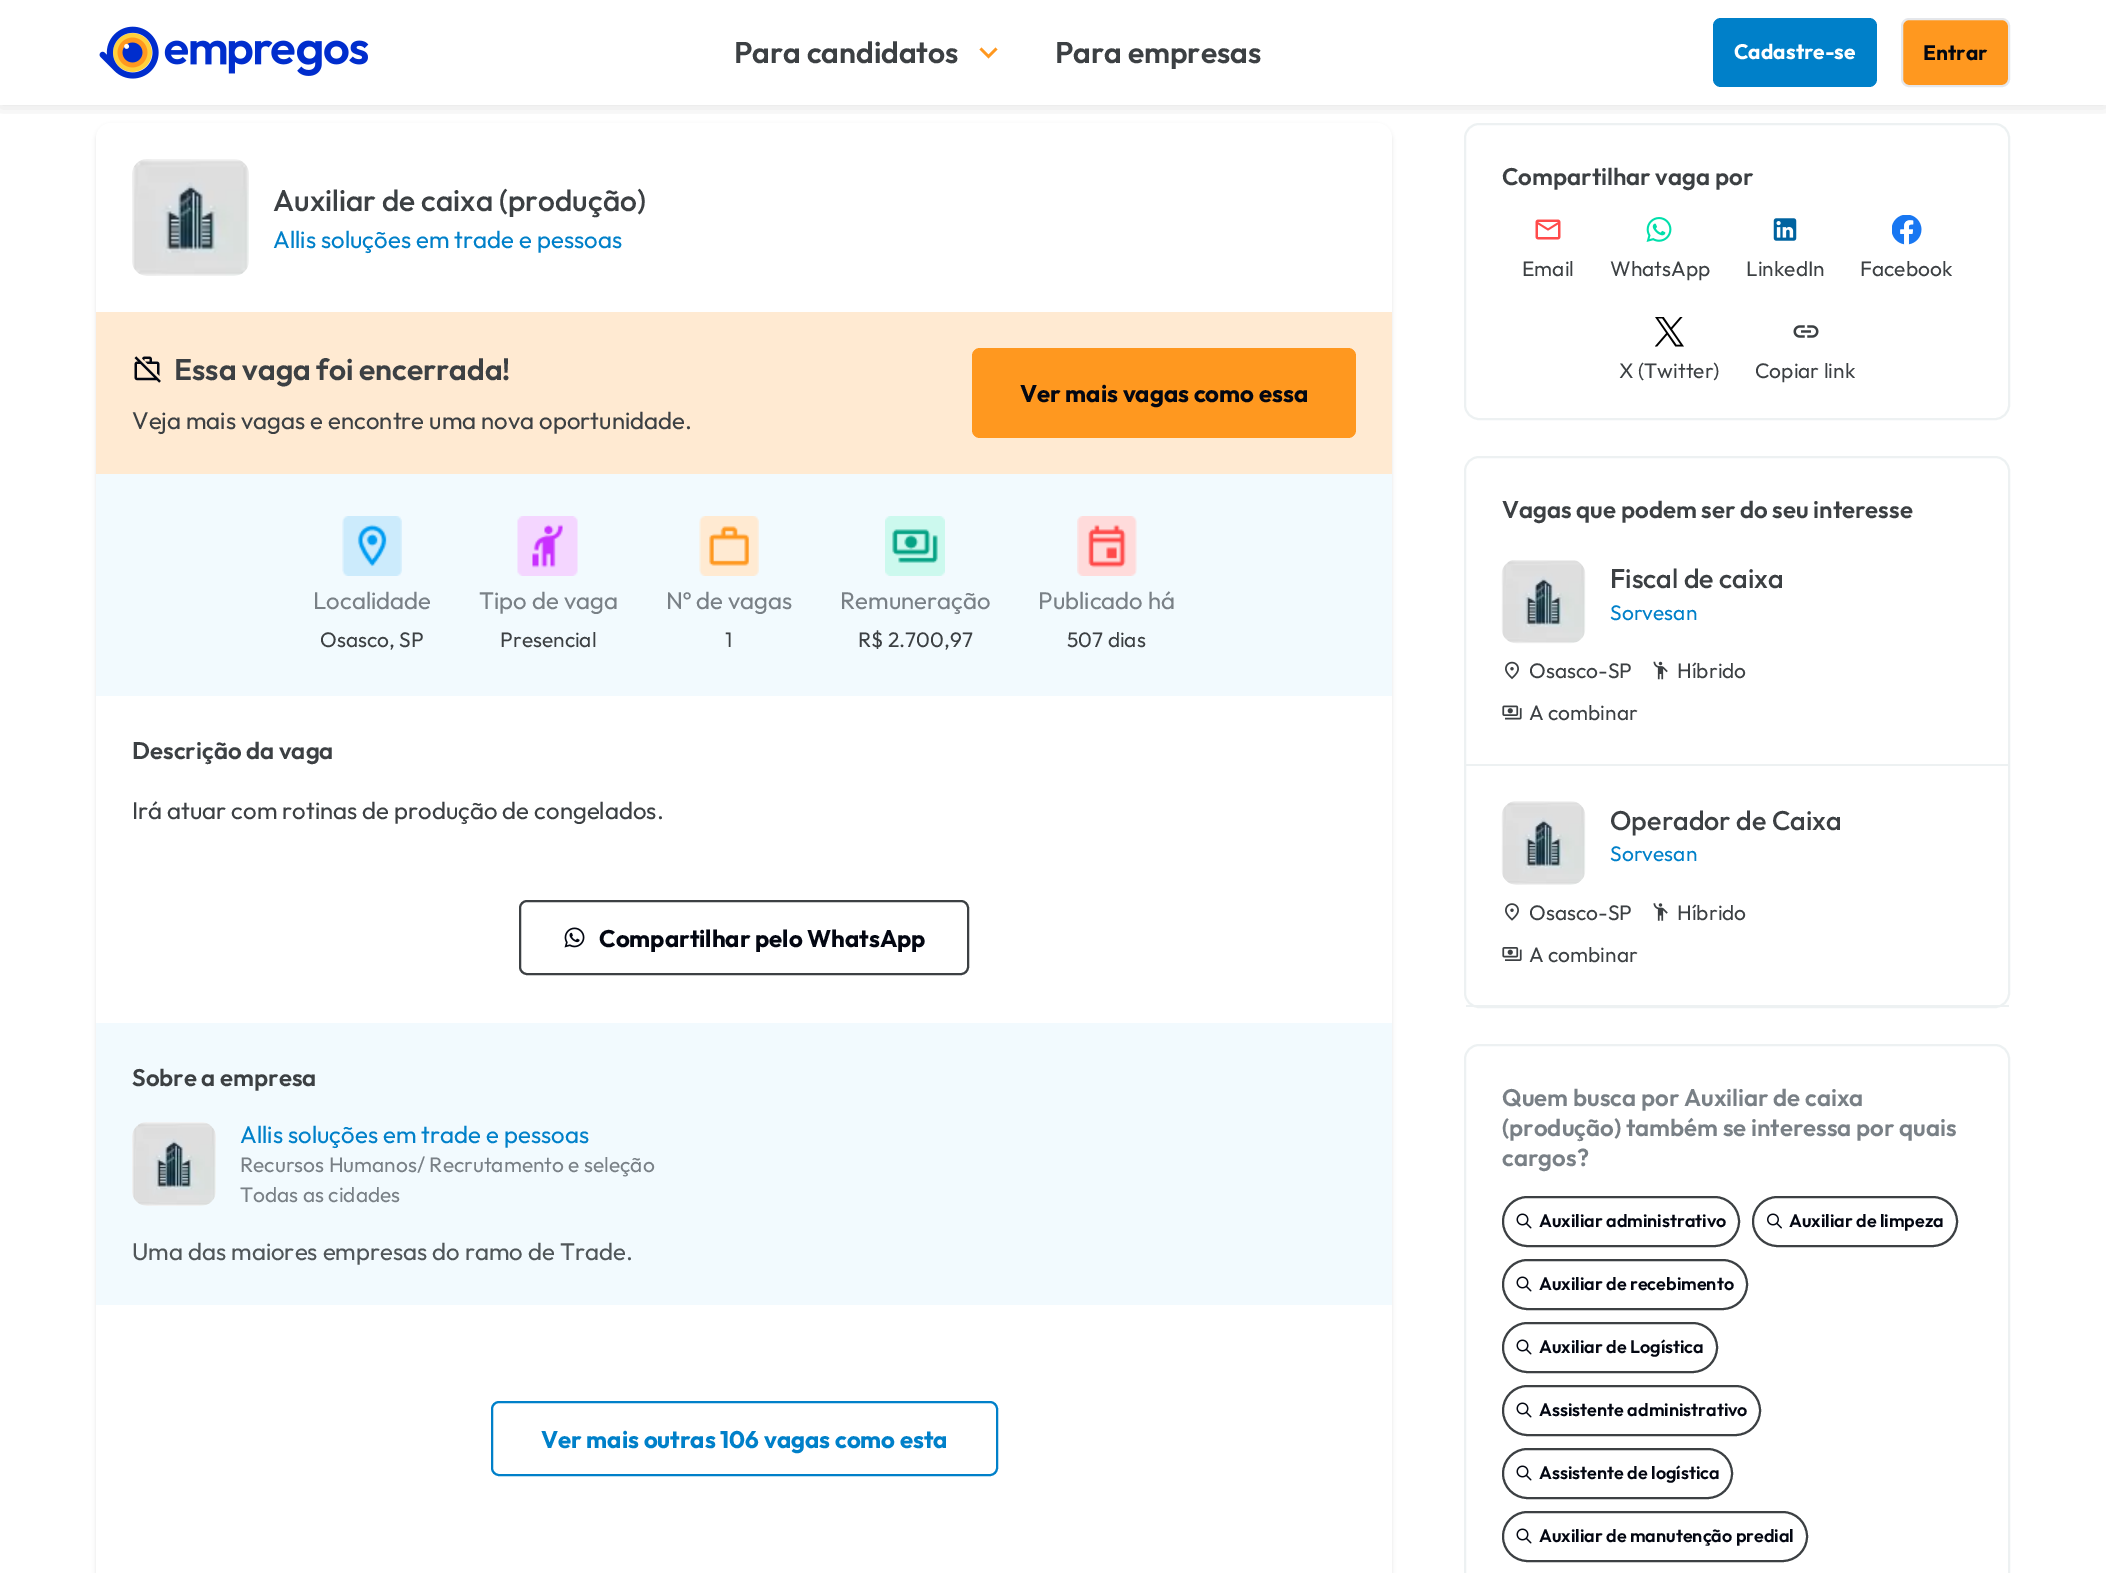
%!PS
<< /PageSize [2106 1573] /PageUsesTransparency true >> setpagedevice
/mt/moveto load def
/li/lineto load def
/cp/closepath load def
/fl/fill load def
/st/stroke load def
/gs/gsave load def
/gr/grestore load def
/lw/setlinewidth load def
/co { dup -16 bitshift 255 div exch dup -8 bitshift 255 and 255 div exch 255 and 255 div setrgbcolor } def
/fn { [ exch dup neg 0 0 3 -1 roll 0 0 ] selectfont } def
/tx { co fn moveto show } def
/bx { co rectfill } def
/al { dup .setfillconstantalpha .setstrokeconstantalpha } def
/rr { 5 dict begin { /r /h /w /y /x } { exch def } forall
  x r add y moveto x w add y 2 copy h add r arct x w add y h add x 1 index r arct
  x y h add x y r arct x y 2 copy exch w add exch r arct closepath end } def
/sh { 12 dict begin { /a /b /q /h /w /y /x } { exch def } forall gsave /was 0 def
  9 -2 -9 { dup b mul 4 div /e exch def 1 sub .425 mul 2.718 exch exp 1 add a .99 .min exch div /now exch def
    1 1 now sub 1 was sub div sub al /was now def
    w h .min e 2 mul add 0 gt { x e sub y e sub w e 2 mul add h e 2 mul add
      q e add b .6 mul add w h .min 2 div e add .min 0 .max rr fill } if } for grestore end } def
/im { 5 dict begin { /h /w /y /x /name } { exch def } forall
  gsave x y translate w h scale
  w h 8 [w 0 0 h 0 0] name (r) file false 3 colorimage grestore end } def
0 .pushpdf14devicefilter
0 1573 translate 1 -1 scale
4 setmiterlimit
0 0 2106 1573 16#FFFFFF bx
16#000000 co
96 125 1296 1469 15 2 .1 sh
16#FFFFFF co
96 123 1296 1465 15 rr fl
16#EDF1F2 co
2 lw
1465 124 544 295 14 rr st
gs
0 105 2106 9 rectclip
16#000000 co
0 3 2106 105 0 7.5 .1 sh
gr
(media/1.raw) 99 26 270 53 im
16#FF981F co
981.5 47.5 mt 988.5 54.5 li 995.5 47.5 li 997.5 49.5 li 988.5 58.5 li 979.5 49.5 li cp fl
16#0080C9 co
1713 18 164 69 8 rr fl
16#FF981F co
1902 19 107 67 7 rr gs fl gr
16#E5E7EB co
st
(media/2.raw) 132 159 117 117 im
96 312 1296 162 16#FFEAD2 bx
(media/3.raw) 134 356 27 27 im
16#FF981F co
972 348 384 90 8 rr fl
96 474 1296 222 16#F2FAFE bx
(media/4.raw) 342 516 60 60 im
(media/5.raw) 517 516 61 60 im
(media/6.raw) 699 516 60 60 im
(media/7.raw) 885 516 60 60 im
(media/8.raw) 1077 516 60 60 im
16#3C4043 co
520 901 448 73 7 rr st
(media/9.raw) 564 927 21 21 im
96 1023 1296 282 16#F2FAFE bx
(media/10.raw) 132 1122 84 84 im
16#0080C9 co
492 1402 505 73 7 rr st
(media/11.raw) 1535 219 26 21 im
(media/12.raw) 1646 217 26 25 im
(media/13.raw) 1773 218 24 23 im
(media/14.raw) 1892 215 30 30 im
(media/15.raw) 1655 317 29 30 im
(media/16.raw) 1793 325 26 13 im
16#EDF1F2 co
1465 457 544 550 14 rr st
1466 764 543 2 16#EDF1F2 bx
(media/17.raw) 1501 560 85 84 im
(media/18.raw) 1505 661 14 19 im
(media/19.raw) 1653 661 15 19 im
(media/20.raw) 1502 705 20 15 im
1466 1005 543 2 16#EDF1F2 bx
(media/21.raw) 1501 801 85 84 im
(media/22.raw) 1505 903 14 18 im
(media/23.raw) 1653 903 15 18 im
(media/24.raw) 1502 947 20 14 im
1465 1045 544 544 14 rr st
16#3C4043 co
1503 1197 236 49 24.5 rr st
(media/25.raw) 1516 1213 16 16 im
1753 1197 204 49 24.5 rr st
(media/26.raw) 1767 1213 15 16 im
1503 1260 244 49 24.5 rr st
(media/25.raw) 1516 1276 16 16 im
1503 1323 214 49 24.5 rr st
(media/25.raw) 1516 1339 16 16 im
1503 1386 257 49 24.5 rr st
(media/25.raw) 1516 1402 16 16 im
1503 1449 229 49 24.5 rr st
(media/25.raw) 1516 1465 16 16 im
1503 1512 304 49 24.5 rr st
(media/25.raw) 1516 1528 16 16 im
(Para candidatos) 734 63 /Outfit-SemiBold 30 16#3C4043 tx
(Para empresas) 1055 63 /Outfit-SemiBold 30 16#3C4043 tx
(Cadastre-se) 1734 59 /Outfit-Bold 21 16#FFFFFF tx
(Entrar) 1923 60 /Outfit-Bold 21 16#030712 tx
(Auxiliar de caixa \(produção\)) 273 211 /Outfit-Medium 30 16#3C4043 tx
(Allis soluções em trade e pessoas) 273 248 /Outfit-Regular 24 16#0080C9 tx
(Essa vaga foi encerrada!) 174 380 /Outfit-SemiBold 30 16#3C4043 tx
(Veja mais vagas e encontre uma nova oportunidade.) 132 429 /Outfit-Regular 24 16#3C4043 tx
(Ver mais vagas como essa) 1020 402 /Outfit-Bold 24 16#030712 tx
(Localidade) 313 609 /Outfit-Regular 24 16#798086 tx
(Osasco, SP) 320 647 /Outfit-Regular 21 16#3C4043 tx
(Tipo de vaga) 479 609 /Outfit-Regular 24 16#798086 tx
(Presencial) 500 647 /Outfit-Regular 21 16#3C4043 tx
(Nº de vagas) 666 609 /Outfit-Regular 24 16#798086 tx
(1) 725 647 /Outfit-Regular 21 16#3C4043 tx
(Remuneração) 840 609 /Outfit-Regular 24 16#798086 tx
(R$ 2.700,97) 858 647 /Outfit-Regular 21 16#3C4043 tx
(Publicado há) 1038 609 /Outfit-Regular 24 16#798086 tx
(507 dias) 1067 647 /Outfit-Regular 21 16#3C4043 tx
(Descrição da vaga) 132 759 /Outfit-SemiBold 24 16#3C4043 tx
(Irá atuar com rotinas de produção de congelados.) 132 819 /Outfit-Regular 24 16#3C4043 tx
(Compartilhar pelo WhatsApp) 599 947 /Outfit-Bold 24 16#030712 tx
(Sobre a empresa) 132 1086 /Outfit-SemiBold 24 16#3C4043 tx
(Allis soluções em trade e pessoas) 240 1143 /Outfit-Regular 24 16#0080C9 tx
(Recursos Humanos/ Recrutamento e seleção) 240 1172 /Outfit-Regular 21 16#798086 tx
(Todas as cidades) 240 1202 /Outfit-Regular 21 16#798086 tx
(Uma das maiores empresas do ramo de Trade.) 132 1260 /Outfit-Regular 24 16#505659 tx
(Ver mais outras 106 vagas como esta) 541 1448 /Outfit-Bold 24 16#0080C9 tx
(Compartilhar vaga por) 1502 185 /Outfit-SemiBold 24 16#3C4043 tx
(Email) 1522 276 /Outfit-Regular 21 16#3C4043 tx
(WhatsApp) 1610 276 /Outfit-Regular 21 16#3C4043 tx
(LinkedIn) 1746 276 /Outfit-Regular 21 16#3C4043 tx
(Facebook) 1860 276 /Outfit-Regular 21 16#3C4043 tx
(X \(Twitter\)) 1619 378 /Outfit-Regular 21 16#3C4043 tx
(Copiar link) 1755 378 /Outfit-Regular 21 16#3C4043 tx
(Vagas que podem ser do seu interesse) 1502 518 /Outfit-SemiBold 24 16#3C4043 tx
(Fiscal de caixa) 1610 588 /Outfit-Medium 27 16#3C4043 tx
(Sorvesan) 1610 620 /Outfit-Regular 21 16#0080C9 tx
(Osasco-SP) 1529 678 /Outfit-Regular 21 16#3C4043 tx
(Híbrido) 1677 678 /Outfit-Regular 21 16#3C4043 tx
(A combinar) 1529 720 /Outfit-Regular 21 16#3C4043 tx
(Operador de Caixa) 1610 830 /Outfit-Medium 27 16#3C4043 tx
(Sorvesan) 1610 861 /Outfit-Regular 21 16#0080C9 tx
(Osasco-SP) 1529 920 /Outfit-Regular 21 16#3C4043 tx
(Híbrido) 1677 920 /Outfit-Regular 21 16#3C4043 tx
(A combinar) 1529 962 /Outfit-Regular 21 16#3C4043 tx
(Quem busca por Auxiliar de caixa) 1502 1106 /Outfit-SemiBold 24 16#798086 tx
(\(produção\) também se interessa por quais) 1502 1136 /Outfit-SemiBold 24 16#798086 tx
(cargos?) 1502 1166 /Outfit-SemiBold 24 16#798086 tx
(Auxiliar administrativo) 1539 1227 /Outfit-SemiBold 18 16#030712 tx
(Auxiliar de limpeza) 1789 1227 /Outfit-SemiBold 18 16#030712 tx
(Auxiliar de recebimento) 1539 1290 /Outfit-SemiBold 18 16#030712 tx
(Auxiliar de Logística) 1539 1353 /Outfit-SemiBold 18 16#030712 tx
(Assistente administrativo) 1539 1416 /Outfit-SemiBold 18 16#030712 tx
(Assistente de logística) 1539 1479 /Outfit-SemiBold 18 16#030712 tx
(Auxiliar de manutenção predial) 1539 1542 /Outfit-SemiBold 18 16#030712 tx
.poppdf14devicefilter showpage
